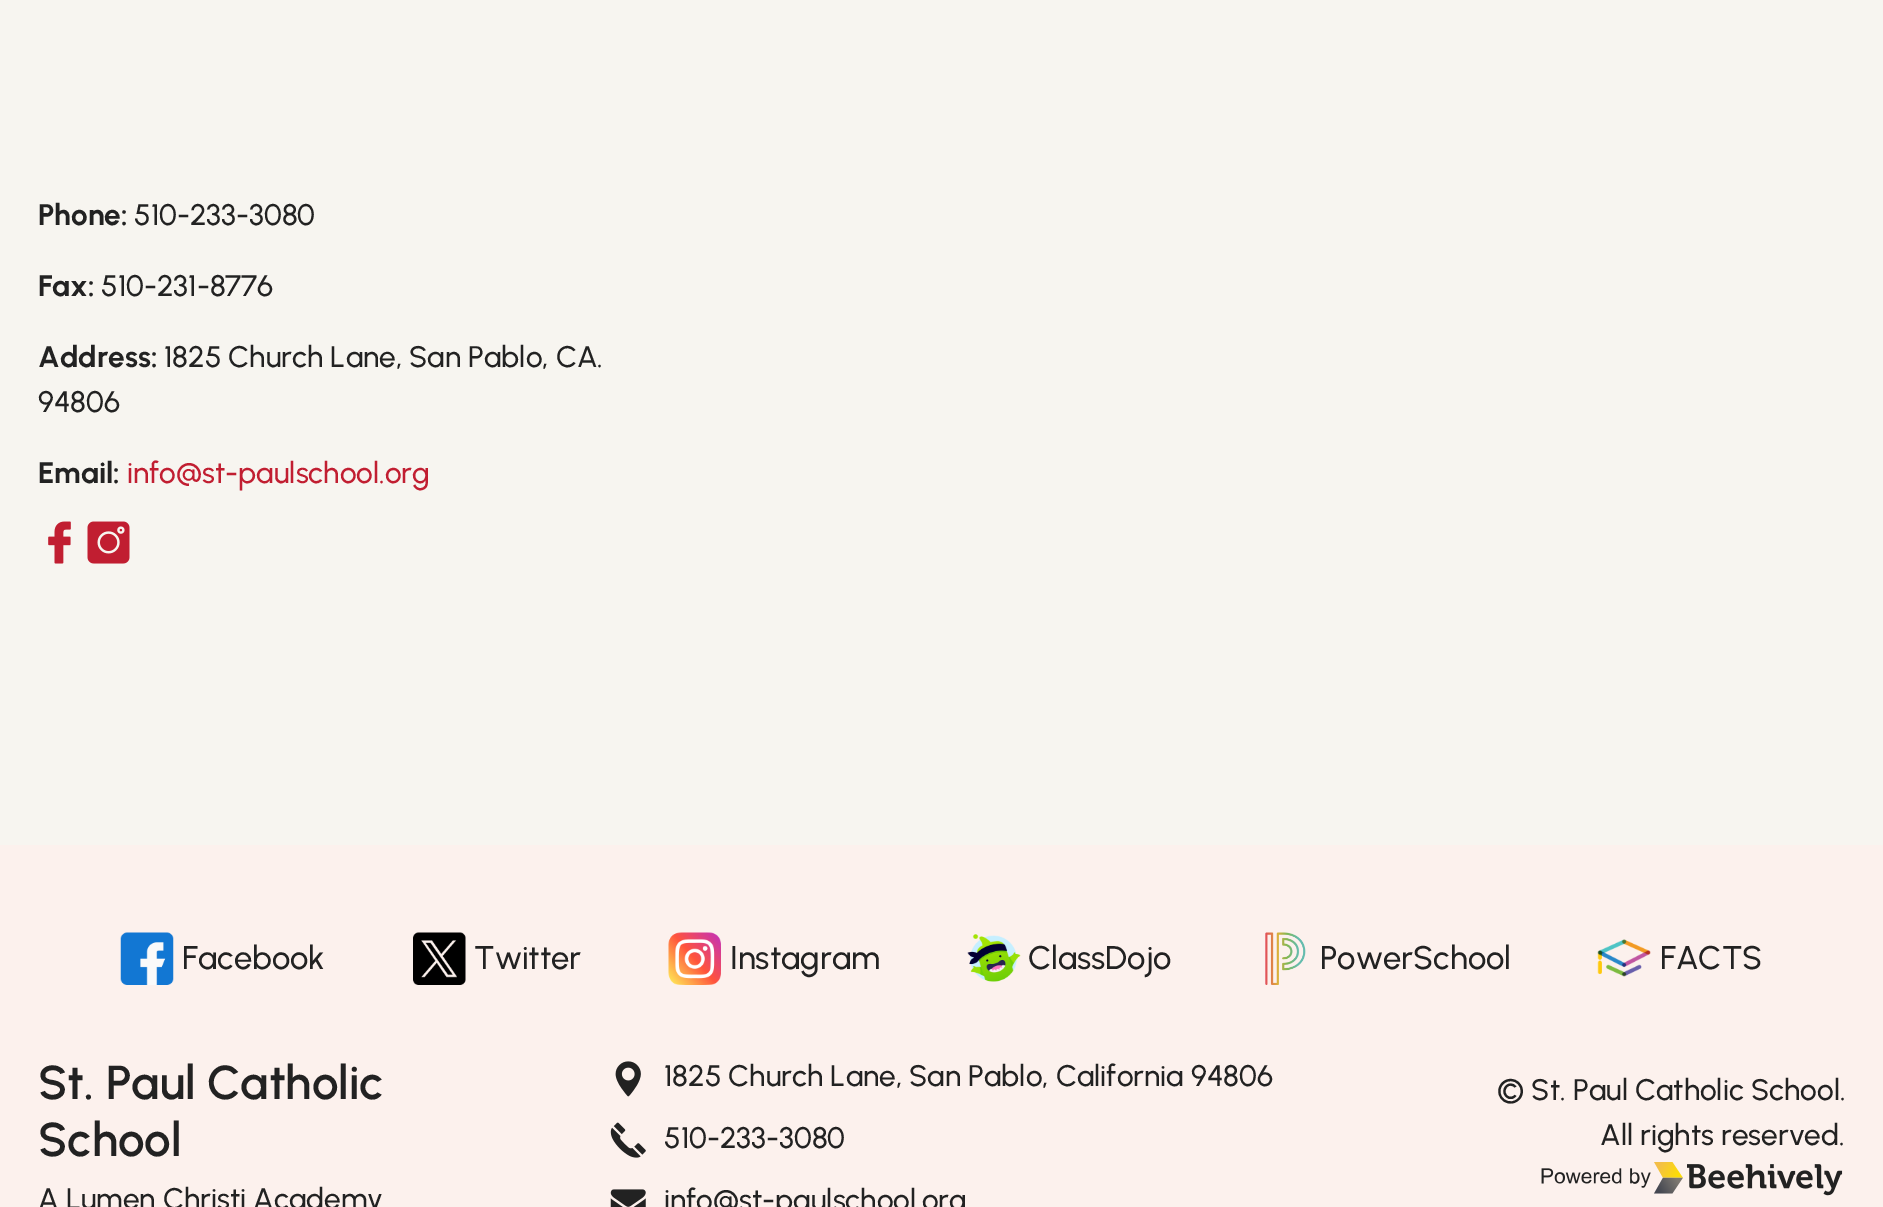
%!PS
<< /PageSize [1883 1207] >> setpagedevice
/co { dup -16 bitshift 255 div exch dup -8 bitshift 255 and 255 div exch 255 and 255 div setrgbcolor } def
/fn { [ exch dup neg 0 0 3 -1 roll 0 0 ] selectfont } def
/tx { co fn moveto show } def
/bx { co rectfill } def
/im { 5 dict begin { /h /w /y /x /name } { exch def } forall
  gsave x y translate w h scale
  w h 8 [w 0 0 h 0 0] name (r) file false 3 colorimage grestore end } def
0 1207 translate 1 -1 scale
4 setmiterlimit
0 0 1883 1207 16#F7F5F0 bx
(media/1.raw) 48 521 23 43 im
(media/2.raw) 87 521 43 43 im
0 845 1883 362 16#FCF1ED bx
(media/3.raw) 120 932 54 53 im
(media/4.raw) 413 932 53 53 im
(media/5.raw) 668 932 53 53 im
(media/6.raw) 967 934 54 48 im
(media/7.raw) 1265 932 41 53 im
(media/8.raw) 1597 939 54 38 im
(media/9.raw) 615 1061 26 36 im
(media/10.raw) 610 1122 36 36 im
(media/11.raw) 610 1189 36 18 im
(media/12.raw) 1541 1162 302 34 im
(Phone:) 38 225 /Urbanist-Bold 29.75 16#222222 tx
(510-233-3080) 134 225 /Urbanist-Medium 29.75 16#222222 tx
(Fax:) 38 296 /Urbanist-Bold 29.75 16#222222 tx
(510-231-8776) 101 296 /Urbanist-Medium 29.75 16#222222 tx
(Address:) 38 367 /Urbanist-Bold 29.75 16#222222 tx
(1825 Church Lane, San Pablo, CA.) 164 367 /Urbanist-Medium 29.75 16#222222 tx
(94806) 38 412 /Urbanist-Medium 29.75 16#222222 tx
(Email:) 38 483 /Urbanist-Bold 29.75 16#222222 tx
(info@st-paulschool.org) 127 483 /Urbanist-Medium 29.75 16#C11E31 tx
(Facebook) 182 969 /Urbanist-Medium 32.75 16#222222 tx
(Twitter) 474 969 /Urbanist-Medium 32.75 16#222222 tx
(Instagram) 730 969 /Urbanist-Medium 32.75 16#222222 tx
(ClassDojo) 1028 969 /Urbanist-Medium 32.75 16#222222 tx
(PowerSchool) 1320 969 /Urbanist-Medium 32.75 16#222222 tx
(FACTS) 1660 969 /Urbanist-Medium 32.75 16#222222 tx
(St. Paul Catholic) 38 1099 /Urbanist-SemiBold 47.5 16#222222 tx
(School) 38 1156 /Urbanist-SemiBold 47.5 16#222222 tx
(A Lumen Christi Academy) 38 1209 /Urbanist-Medium 29.75 16#222222 tx
(1825 Church Lane, San Pablo, California 94806) 664 1086 /Urbanist-Medium 29.75 16#222222 tx
(510-233-3080) 664 1148 /Urbanist-Medium 29.75 16#222222 tx
(info@st-paulschool.org) 664 1210 /Urbanist-Medium 29.75 16#222222 tx
(© St. Paul Catholic School.) 1497 1100 /Urbanist-Medium 29.75 16#222222 tx
(All rights reserved.) 1600 1145 /Urbanist-Medium 29.75 16#222222 tx
showpage
